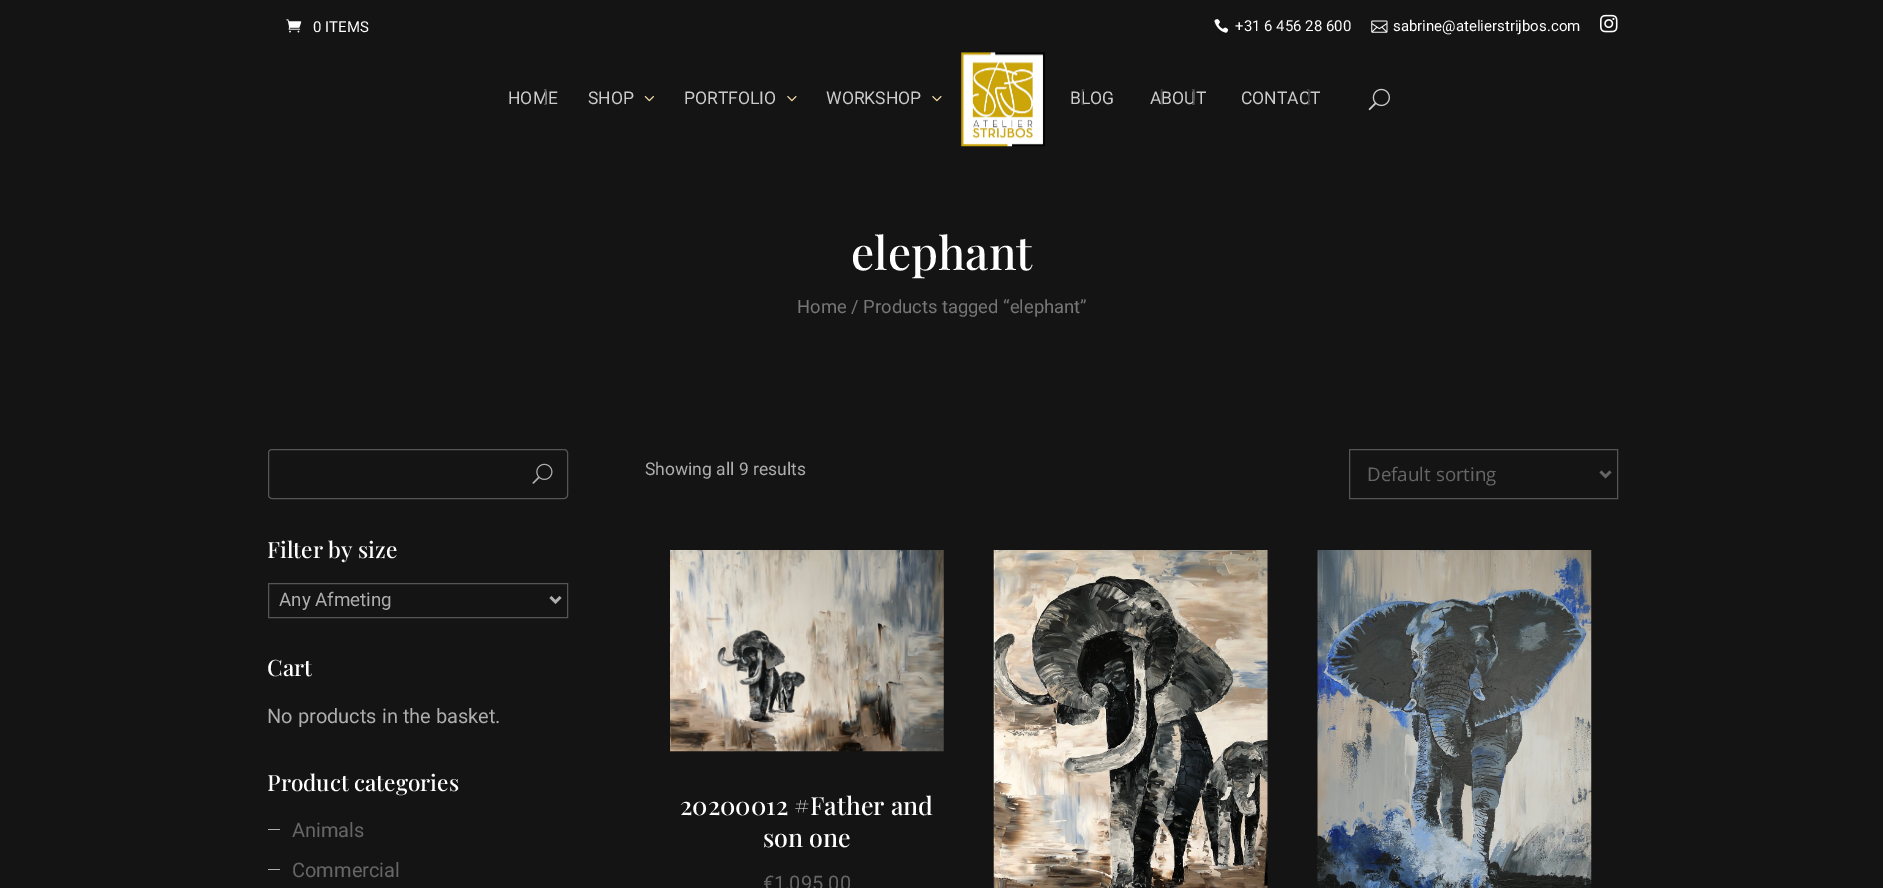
%!PS
<< /PageSize [1883 888] >> setpagedevice
/mt/moveto load def
/li/lineto load def
/st/stroke load def
/lw/setlinewidth load def
/co { dup -16 bitshift 255 div exch dup -8 bitshift 255 and 255 div exch 255 and 255 div setrgbcolor } def
/fn { [ exch dup neg 0 0 3 -1 roll 0 0 ] selectfont } def
/tx { co fn moveto show } def
/bx { co rectfill } def
/rr { 5 dict begin { /r /h /w /y /x } { exch def } forall
  x r add y moveto x w add y 2 copy h add r arct x w add y h add x 1 index r arct
  x y h add x y r arct x y 2 copy exch w add exch r arct closepath end } def
/im { 5 dict begin { /h /w /y /x /name } { exch def } forall
  gsave x y translate w h scale
  w h 8 [w 0 0 h 0 0] name (r) file false 3 colorimage grestore end } def
0 888 translate 1 -1 scale
4 setmiterlimit
0 0 1883 888 16#141414 bx
(media/1.raw) 286 19 16 14 im
(media/2.raw) 1214 19 15 14 im
(media/3.raw) 1371 20 17 13 im
(media/4.raw) 1600 14 18 19 im
(media/5.raw) 644 96 10 6 im
(media/6.raw) 787 96 10 6 im
(media/6.raw) 932 96 10 6 im
(media/7.raw) 961 52 84 95 im
(media/8.raw) 1368 88 22 23 im
16#555555 co
268.5 449.5 299 49 3.5 rr st
(media/9.raw) 532 463 21 21 im
268.5 583.5 299 34 rectstroke
16#AEAEAE co
2.5 lw
550.5 597 mt 555.5 602 li 560.5 597 li st
268 829 12 1 16#AEAEAE bx
268 869 12 1 16#AEAEAE bx
16#555555 co
1 lw
1349.5 449.5 268 49 rectstroke
16#666666 co
2.5 lw
1600.5 471.5 mt 1605.5 476.5 li 1610.5 471.5 li st
(media/10.raw) 670 550 274 202 im
(media/11.raw) 993 550 275 338 im
(media/12.raw) 1317 550 275 338 im
(0 ITEMS) 313 32 /Roboto-Regular 15 16#FFFFFF tx
(+31 6 456 28 600) 1235 31 /Roboto-Regular 15 16#FFFFFF tx
(sabrine@atelierstrijbos.com) 1393 31 /Roboto-Regular 15 16#FFFFFF tx
(HOME) 508 104 /Roboto-Regular 17.5 16#CBCBCB tx
(]) 543 104 /Raleway-Regular 20 16#666666 tx
(SHOP) 588 104 /Roboto-Regular 17.5 16#CBCBCB tx
(PORTFOLIO) 684 104 /Roboto-Regular 17.5 16#CBCBCB tx
(WORKSHOP) 826 104 /Roboto-Regular 17.5 16#CBCBCB tx
(BLOG) 1070 104 /Roboto-Regular 17.5 16#CBCBCB tx
([) 1080 104 /Raleway-Regular 20 16#4C4C4C tx
(ABOUT) 1150 104 /Roboto-Regular 17.5 16#CBCBCB tx
(]) 1191 104 /Raleway-Regular 20 16#595959 tx
([) 1159 104 /Raleway-Regular 20 16#414141 tx
(CONTACT) 1241 104 /Roboto-Regular 17.5 16#CBCBCB tx
(]) 1306 104 /Raleway-Regular 20 16#414141 tx
(elephant) 851 270 /PlayfairDisplay-Medium 46 16#FFFFFF tx
(Home / Products tagged “elephant”) 797 313 /Roboto-Regular 18.4 16#767676 tx
(Filter by size) 267 558 /PlayfairDisplay-Medium 22.5 16#FFFFFF tx
(Any Afmeting) 279 606 /Roboto-Regular 18.75 16#AEAEAE tx
(Cart) 267 676 /PlayfairDisplay-Medium 22.5 16#FFFFFF tx
(No products in the basket.) 267 723 /Roboto-Regular 20 16#AEAEAE tx
(Product categories) 267 791 /PlayfairDisplay-Medium 22.5 16#FFFFFF tx
(Animals) 292 837 /Roboto-Regular 20 16#666666 tx
(Commercial) 292 877 /Roboto-Regular 20 16#666666 tx
(Showing all 9 results) 645 475 /Roboto-Regular 17.5 16#AEAEAE tx
(Default sorting) 1367 481 /OpenSans-Regular 18.75 16#666666 tx
(20200012 #Father and) 680 815 /PlayfairDisplay-Medium 25 16#FFFFFF tx
(son one) 763 847 /PlayfairDisplay-Medium 25 16#FFFFFF tx
(€1,095.00) 763 890 /Roboto-Regular 20 16#666666 tx
showpage
